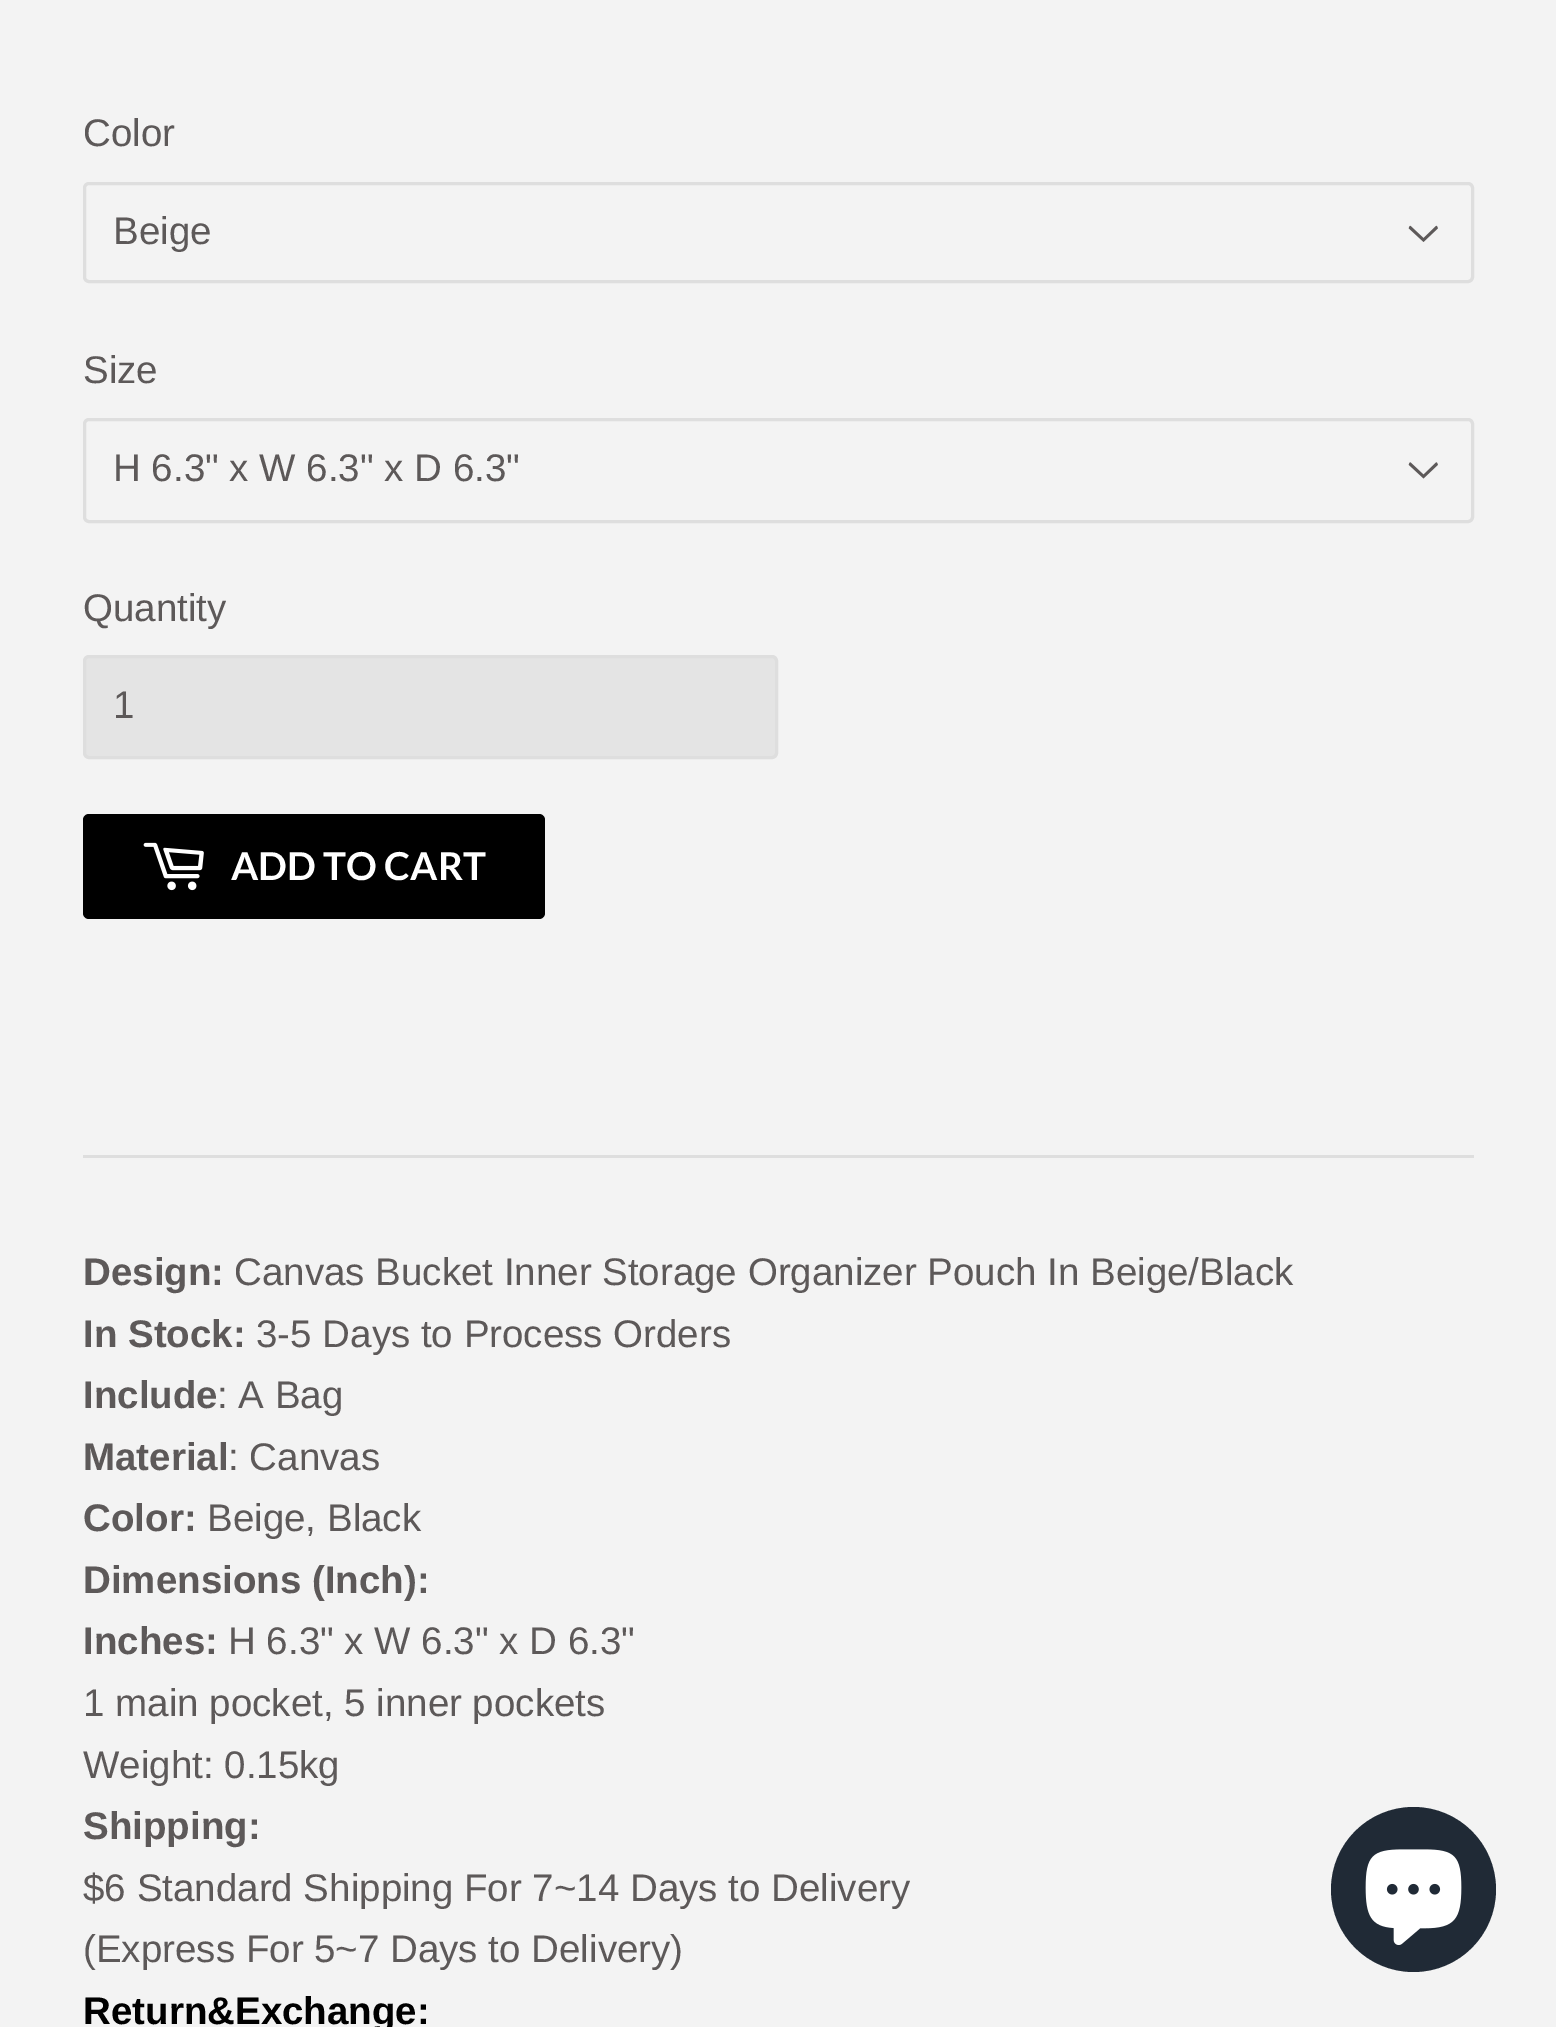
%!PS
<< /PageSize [1556 2027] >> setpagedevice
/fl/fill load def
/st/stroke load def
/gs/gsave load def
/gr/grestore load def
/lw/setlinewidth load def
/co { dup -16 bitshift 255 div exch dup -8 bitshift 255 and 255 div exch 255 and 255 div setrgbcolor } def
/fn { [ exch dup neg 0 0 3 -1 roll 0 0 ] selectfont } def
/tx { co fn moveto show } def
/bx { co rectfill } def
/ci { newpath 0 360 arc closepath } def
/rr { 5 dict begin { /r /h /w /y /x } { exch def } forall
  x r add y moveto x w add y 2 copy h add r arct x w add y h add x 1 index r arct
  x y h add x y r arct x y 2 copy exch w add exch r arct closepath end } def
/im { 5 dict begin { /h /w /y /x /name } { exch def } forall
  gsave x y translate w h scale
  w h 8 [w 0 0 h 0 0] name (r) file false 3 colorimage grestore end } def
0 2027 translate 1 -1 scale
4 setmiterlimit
0 0 1556 2027 16#F3F3F3 bx
(media/1.raw) 1408 225 30 17 im
16#DEDEDE co
3 lw
84.5 183.5 1388 98 4.5 rr st
(media/2.raw) 1408 462 30 17 im
84.5 419.5 1388 102 4.5 rr st
16#E4E4E4 co
84.5 656.5 692 101 4.5 rr gs fl gr
16#DEDEDE co
st
16#000000 co
83 814 462 105 6 rr fl
(media/3.raw) 143 842 61 49 im
83 1155 1391 3 16#DEDEDE bx
16#202A36 co
1413.5 1889.5 82.5 ci fl
(media/4.raw) 1365 1849 97 96 im
(Color) 83 146 /LiberationSans-Regular 38.5 16#5D5959 tx
(Beige) 113 244 /LiberationSans-Regular 38.5 16#5D5959 tx
(Size) 83 383 /LiberationSans-Regular 38.5 16#5D5959 tx
(H 6.3" x W 6.3" x D 6.3") 113 481 /LiberationSans-Regular 38.5 16#5D5959 tx
(Quantity) 83 621 /LiberationSans-Regular 38.5 16#5D5959 tx
(1) 113 718 /LiberationSans-Regular 38.5 16#5D5959 tx
(ADD TO CART) 231 880 /Lato-Bold 38.5 16#FFFFFF tx
(Design:) 83 1285 /LiberationSans-Bold 38.5 16#5D5959 tx
(Canvas Bucket Inner Storage Organizer Pouch In Beige/Black) 234 1285 /LiberationSans-Regular 38.5 16#5D5959 tx
(In Stock:) 83 1347 /LiberationSans-Bold 38.5 16#5D5959 tx
(3-5 Days to Process Orders) 256 1347 /LiberationSans-Regular 38.5 16#5D5959 tx
(Include) 83 1408 /LiberationSans-Bold 38.5 16#5D5959 tx
(: A Bag) 217 1408 /LiberationSans-Regular 38.5 16#5D5959 tx
(Material) 83 1470 /LiberationSans-Bold 38.5 16#5D5959 tx
(: Canvas) 228 1470 /LiberationSans-Regular 38.5 16#5D5959 tx
(Color:) 83 1531 /LiberationSans-Bold 38.5 16#5D5959 tx
(Beige, Black) 207 1531 /LiberationSans-Regular 38.5 16#5D5959 tx
(Dimensions \(Inch\):) 83 1593 /LiberationSans-Bold 38.5 16#5D5959 tx
(Inches:) 83 1654 /LiberationSans-Bold 38.5 16#5D5959 tx
(H 6.3" x W 6.3" x D 6.3") 228 1654 /LiberationSans-Regular 38.5 16#5D5959 tx
(1 main pocket, 5 inner pockets) 83 1716 /LiberationSans-Regular 38.5 16#5D5959 tx
(Weight: 0.15kg) 83 1778 /LiberationSans-Regular 38.5 16#5D5959 tx
(Shipping:) 83 1839 /LiberationSans-Bold 38.5 16#5D5959 tx
($6 Standard Shipping For 7~14 Days to Delivery) 83 1901 /LiberationSans-Regular 38.5 16#5D5959 tx
(\(Express For 5~7 Days to Delivery\)) 83 1962 /LiberationSans-Regular 38.5 16#5D5959 tx
(Return&Exchange:) 83 2024 /LiberationSans-Bold 38.5 16#000000 tx
showpage
